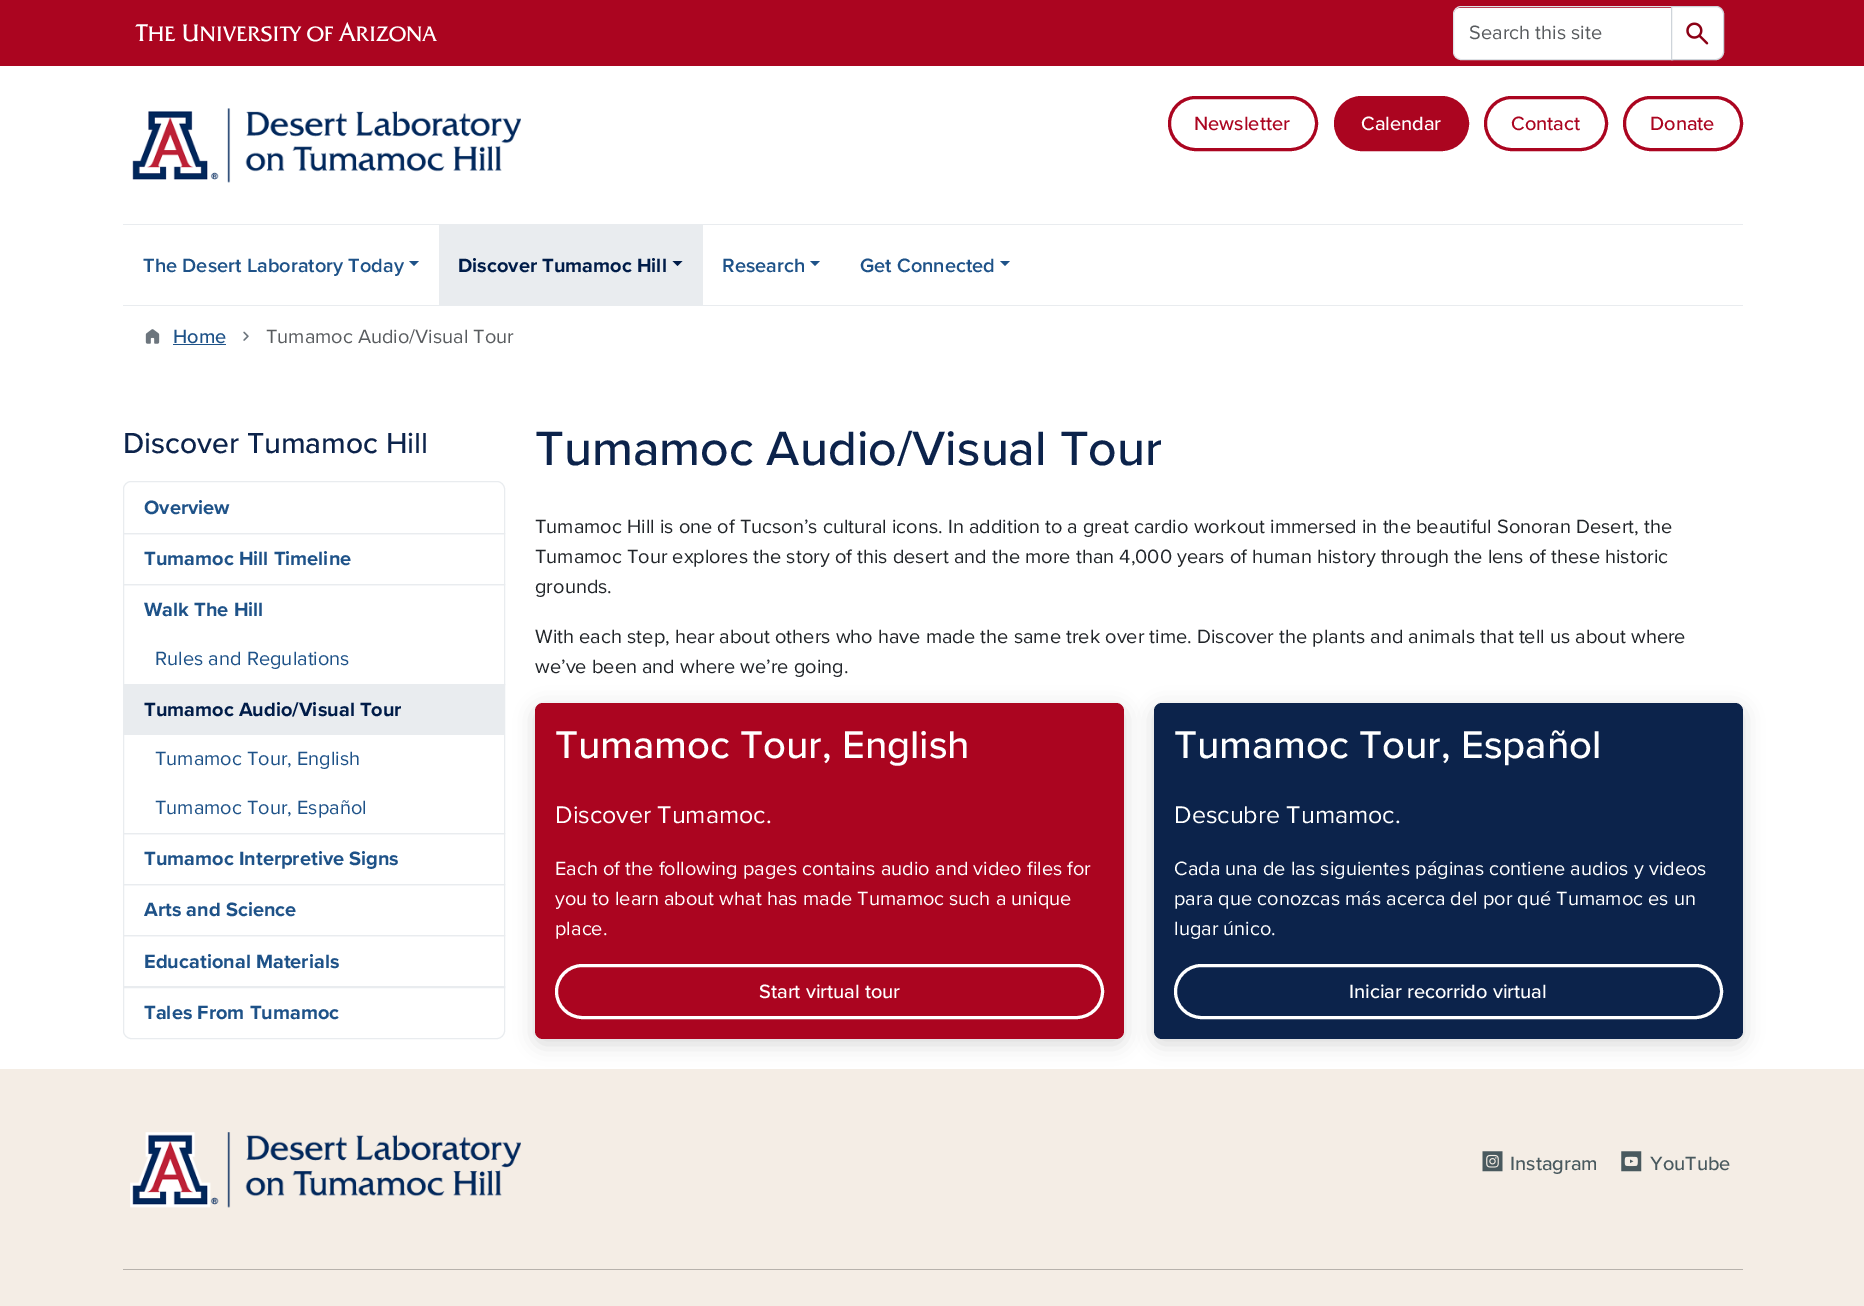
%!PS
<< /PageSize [1864 1306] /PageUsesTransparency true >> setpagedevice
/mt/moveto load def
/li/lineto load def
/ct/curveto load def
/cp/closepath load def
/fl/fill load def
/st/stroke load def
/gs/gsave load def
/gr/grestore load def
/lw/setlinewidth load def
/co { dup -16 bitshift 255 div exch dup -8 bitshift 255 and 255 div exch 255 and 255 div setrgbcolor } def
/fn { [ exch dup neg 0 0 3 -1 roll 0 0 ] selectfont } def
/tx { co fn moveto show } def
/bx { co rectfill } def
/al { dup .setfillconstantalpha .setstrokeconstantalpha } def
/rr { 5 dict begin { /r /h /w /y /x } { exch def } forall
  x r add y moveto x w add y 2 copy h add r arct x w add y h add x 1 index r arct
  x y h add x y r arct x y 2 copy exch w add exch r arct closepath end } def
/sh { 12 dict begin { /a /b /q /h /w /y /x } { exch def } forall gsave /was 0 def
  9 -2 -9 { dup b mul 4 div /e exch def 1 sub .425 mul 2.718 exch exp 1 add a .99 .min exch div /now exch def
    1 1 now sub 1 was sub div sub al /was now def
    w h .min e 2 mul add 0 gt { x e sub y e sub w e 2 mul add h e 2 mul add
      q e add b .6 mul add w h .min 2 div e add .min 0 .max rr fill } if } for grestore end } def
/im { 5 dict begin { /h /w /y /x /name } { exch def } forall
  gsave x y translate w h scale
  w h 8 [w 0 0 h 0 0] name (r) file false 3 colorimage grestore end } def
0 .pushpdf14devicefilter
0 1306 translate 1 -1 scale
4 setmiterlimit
0 0 1864 1306 16#FFFFFF bx
0 0 1864 66 16#AB0520 bx
(media/1.raw) 135 22 302 20 im
16#FFFFFF co
1460 8 mt 1671 8 li 1671 59 li 1460 59 li 1456.5 59 1454 56.5 1454 53 ct 1454 14 li 1454 10.5 1456.5 8 1460 8 ct cp fl
16#DEE2E6 co
1461 6.5 mt 1672.5 6.5 li 1672.5 59.5 li 1461 59.5 li 1457 59.5 1453.5 56 1453.5 52 ct 1453.5 14 li 1453.5 10 1457 6.5 1461 6.5 ct cp st
16#FFFFFF co
1671.5 6.5 mt 1716 6.5 li 1720 6.5 1723.5 10 1723.5 14 ct 1723.5 52 li 1723.5 56 1720 59.5 1716 59.5 ct 1671.5 59.5 li cp gs fl gr
16#CED4DA co
st
(media/2.raw) 1686 22 23 23 im
(media/3.raw) 132 108 389 75 im
16#AB0520 co
3 lw
1169.5 97.5 147 52 26 rr st
1335.5 97.5 132 52 26 rr gs fl gr
st
1485.5 97.5 121 52 26 rr st
1624.5 97.5 117 52 26 rr st
123 224 1620 1 16#E9ECEF bx
123 305 1620 1 16#E9ECEF bx
16#1E5288 co
409 261 mt 419 261 li 414 266 li cp fl
439 225 264 80 16#E9ECEF bx
16#001C48 co
672.5 261 mt 682.5 261 li 677.5 266 li cp fl
16#1E5288 co
810 261 mt 820 261 li 815 266 li cp fl
1000 261 mt 1010 261 li 1005 266 li cp fl
(media/4.raw) 145 329 15 15 im
173 344 53 1 16#1E5288 bx
(media/5.raw) 243 331 6 10 im
16#E9ECEF co
1 lw
123.5 533.5 381 51 rectstroke
131 481.5 mt 497 481.5 li 501 481.5 504.5 485 504.5 489 ct 504.5 533.5 li 123.5 533.5 li 123.5 489 li 123.5 485 127 481.5 131 481.5 ct cp st
123.5 584.5 381 100 rectstroke
123.5 684.5 381 149 rectstroke
124 685 380 50 16#E9ECEF bx
123.5 833.5 381 51 rectstroke
123.5 884.5 381 51 rectstroke
123.5 935.5 381 52 rectstroke
123.5 986.5 mt 504.5 986.5 li 504.5 1031 li 504.5 1035 501 1038.5 497 1038.5 ct 131 1038.5 li 127 1038.5 123.5 1035 123.5 1031 ct cp st
0 1069 1864 237 16#F4EDE5 bx
16#000000 co
535 708 589 336 8 10 .15 sh
16#AB0520 co
535 703 589 336 8 rr fl
16#FFFFFF co
3 lw
556.5 965.5 546 52 26 rr st
16#000000 co
1154 708 589 336 8 10 .15 sh
16#0C234B co
1154 703 589 336 8 rr fl
16#FFFFFF co
1175.5 965.5 546 52 26 rr st
(media/6.raw) 130 1132 391 76 im
(media/7.raw) 1482 1151 21 21 im
(media/8.raw) 1621 1151 21 21 im
123 1269 1620 1 16#B7B2AC bx
(Search this site) 1469 39 /ProximaNova-Regular 20 16#595C5F tx
(Newsletter) 1194 130 /ProximaNova-Medium 20 16#AB0520 tx
(Calendar) 1361 130 /ProximaNova-Medium 20 16#FFFFFF tx
(Contact) 1511 130 /ProximaNova-Medium 20 16#AB0520 tx
(Donate) 1650 130 /ProximaNova-Medium 20 16#AB0520 tx
(The Desert Laboratory Today) 143 272 /ProximaNova-SemiBold 20 16#1E5288 tx
(Discover Tumamoc Hill) 458 272 /ProximaNova-Bold 20 16#001C48 tx
(Research) 722 272 /ProximaNova-SemiBold 20 16#1E5288 tx
(Get Connected) 860 272 /ProximaNova-SemiBold 20 16#1E5288 tx
(Home) 173 343 /ProximaNova-Medium 20 16#1E5288 tx
(Tumamoc Audio/Visual Tour) 266 343 /ProximaNova-Regular 20 16#595C5F tx
(Discover Tumamoc Hill) 123 453 /ProximaNova-Medium 30 16#0C234B tx
(Overview) 144 514 /ProximaNova-Bold 20 16#1E5288 tx
(Tumamoc Hill Timeline) 144 565 /ProximaNova-Bold 20 16#1E5288 tx
(Walk The Hill) 144 616 /ProximaNova-Bold 20 16#1E5288 tx
(Rules and Regulations) 155 665 /ProximaNova-Regular 20 16#1E5288 tx
(Tumamoc Audio/Visual Tour) 144 716 /ProximaNova-Bold 20 16#001C48 tx
(Tumamoc Tour, English) 155 765 /ProximaNova-Regular 20 16#1E5288 tx
(Tumamoc Tour, Español) 155 814 /ProximaNova-Regular 20 16#1E5288 tx
(Tumamoc Interpretive Signs) 144 865 /ProximaNova-Bold 20 16#1E5288 tx
(Arts and Science) 144 916 /ProximaNova-Bold 20 16#1E5288 tx
(Educational Materials) 144 968 /ProximaNova-Bold 20 16#1E5288 tx
(Tales From Tumamoc) 144 1019 /ProximaNova-Bold 20 16#1E5288 tx
(Tumamoc Audio/Visual Tour) 535 465 /ProximaNova-Medium 50 16#0C234B tx
(Tumamoc Hill is one of Tucson’s cultural icons. In addition to a great cardio workout immersed in the beautiful Sonoran Desert, the) 535 533 /ProximaNova-Regular 20 16#212529 tx
(Tumamoc Tour explores the story of this desert and the more than 4,000 years of human history through the lens of these historic) 535 563 /ProximaNova-Regular 20 16#212529 tx
(grounds.) 535 593 /ProximaNova-Regular 20 16#212529 tx
(With each step, hear about others who have made the same trek over time. Discover the plants and animals that tell us about where) 535 643 /ProximaNova-Regular 20 16#212529 tx
(we’ve been and where we’re going.) 535 673 /ProximaNova-Regular 20 16#212529 tx
(Tumamoc Tour, English) 555 758 /ProximaNova-Medium 40 16#FFFFFF tx
(Discover Tumamoc.) 555 823 /ProximaNova-Regular 25 16#FFFFFF tx
(Each of the following pages contains audio and video files for) 555 875 /ProximaNova-Regular 20 16#FFFFFF tx
(you to learn about what has made Tumamoc such a unique) 555 905 /ProximaNova-Regular 20 16#FFFFFF tx
(place.) 555 935 /ProximaNova-Regular 20 16#FFFFFF tx
(Start virtual tour) 759 998 /ProximaNova-Medium 20 16#FFFFFF tx
(Tumamoc Tour, Español) 1174 758 /ProximaNova-Medium 40 16#FFFFFF tx
(Descubre Tumamoc.) 1174 823 /ProximaNova-Regular 25 16#FFFFFF tx
(Cada una de las siguientes páginas contiene audios y videos) 1174 875 /ProximaNova-Regular 20 16#FFFFFF tx
(para que conozcas más acerca del por qué Tumamoc es un) 1174 905 /ProximaNova-Regular 20 16#FFFFFF tx
(lugar único.) 1174 935 /ProximaNova-Regular 20 16#FFFFFF tx
(Iniciar recorrido virtual) 1349 998 /ProximaNova-Medium 20 16#FFFFFF tx
(Instagram) 1510 1170 /ProximaNova-Medium 20 16#49595E tx
(YouTube) 1650 1170 /ProximaNova-Medium 20 16#49595E tx
.poppdf14devicefilter showpage
